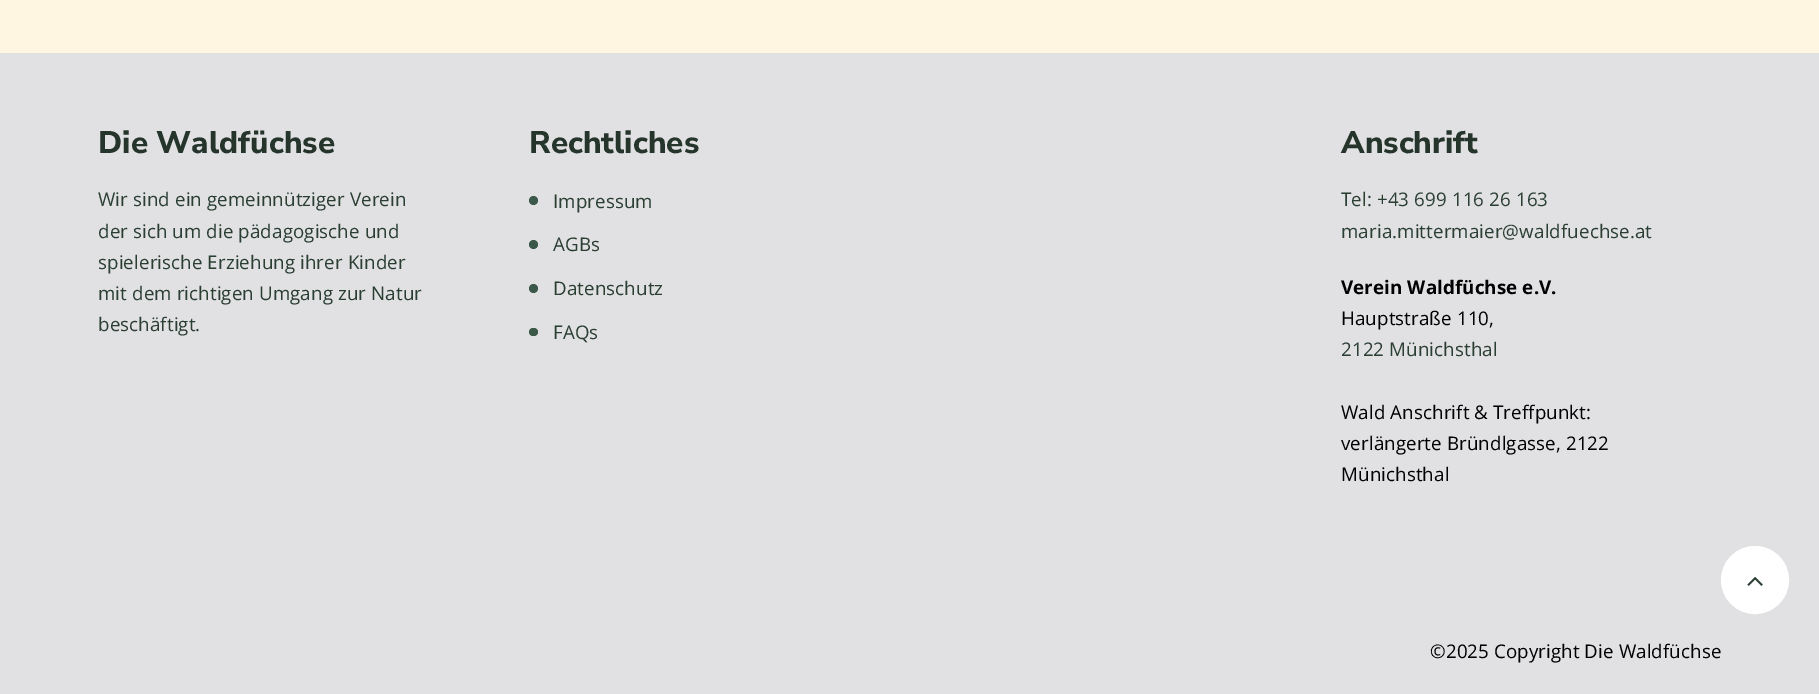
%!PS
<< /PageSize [1819 694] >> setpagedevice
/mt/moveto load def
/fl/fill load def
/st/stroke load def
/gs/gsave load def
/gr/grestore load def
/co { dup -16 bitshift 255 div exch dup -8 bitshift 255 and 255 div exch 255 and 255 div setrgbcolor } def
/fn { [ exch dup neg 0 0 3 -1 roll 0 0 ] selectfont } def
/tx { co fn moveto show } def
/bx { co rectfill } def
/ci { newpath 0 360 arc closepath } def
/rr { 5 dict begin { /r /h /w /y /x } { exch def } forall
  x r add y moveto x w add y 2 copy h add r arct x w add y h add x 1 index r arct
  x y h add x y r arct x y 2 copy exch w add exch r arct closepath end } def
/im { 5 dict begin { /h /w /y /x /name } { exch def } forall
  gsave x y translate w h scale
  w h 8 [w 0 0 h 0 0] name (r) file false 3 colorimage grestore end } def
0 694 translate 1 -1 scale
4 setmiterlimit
0 0 1819 694 16#FFF6E2 bx
0 53 1819 641 16#E1E1E4 bx
16#3C5848 co
533.5 200.5 4.5 ci fl
533.5 244.5 4.5 ci fl
533.5 288.5 4.5 ci fl
529 328 9 8 4 rr fl
16#FFFFFF co
1755 580 33.5 ci gs fl gr
st
(media/1.raw) 1747 577 16 9 im
(Die Waldfüchse) 98 153 /NunitoSans-ExtraBold 31.25 16#25352B tx
/OpenSans-Regular 18.75 fn
16#2A3E32 co
98 206 mt .1 0 (Wir sind ein gemeinnütziger Verein) ashow
98 238 mt .1 0 (der sich um die pädagogische und) ashow
98 269 mt .1 0 (spielerische Erziehung ihrer Kinder) ashow
98 300 mt .1 0 (mit dem richtigen Umgang zur Natur) ashow
98 331 mt .1 0 (beschäftigt.) ashow
(Rechtliches) 529 153 /NunitoSans-ExtraBold 31.25 16#25352B tx
/OpenSans-Regular 18.75 fn
16#2A3E32 co
553 208 mt .1 0 (Impressum) ashow
553 251 mt .1 0 (AGBs) ashow
553 295 mt .1 0 (Datenschutz) ashow
553 339 mt .1 0 (FAQs) ashow
(Anschrift) 1341 153 /NunitoSans-ExtraBold 31.25 16#25352B tx
/OpenSans-Regular 18.75 fn
16#2A3E32 co
1341 206 mt .1 0 (Tel: +43 699 116 26 163) ashow
1341 238 mt .1 0 (maria.mittermaier@waldfuechse.at) ashow
/OpenSans-Bold 18.75 fn
16#000000 co
1341 294 mt .1 0 (Verein Waldfüchse e.V.) ashow
/OpenSans-Regular 18.75 fn
1341 325 mt .1 0 (Hauptstraße 110,) ashow
16#2A3E32 co
1341 356 mt .1 0 (2122 Münichsthal) ashow
16#000000 co
1341 419 mt .1 0 (Wald Anschrift & Treffpunkt:) ashow
1341 450 mt .1 0 (verlängerte Bründlgasse, 2122) ashow
1341 481 mt .1 0 (Münichsthal) ashow
1430 658 mt .1 0 (©2025 Copyright Die Waldfüchse) ashow
showpage
